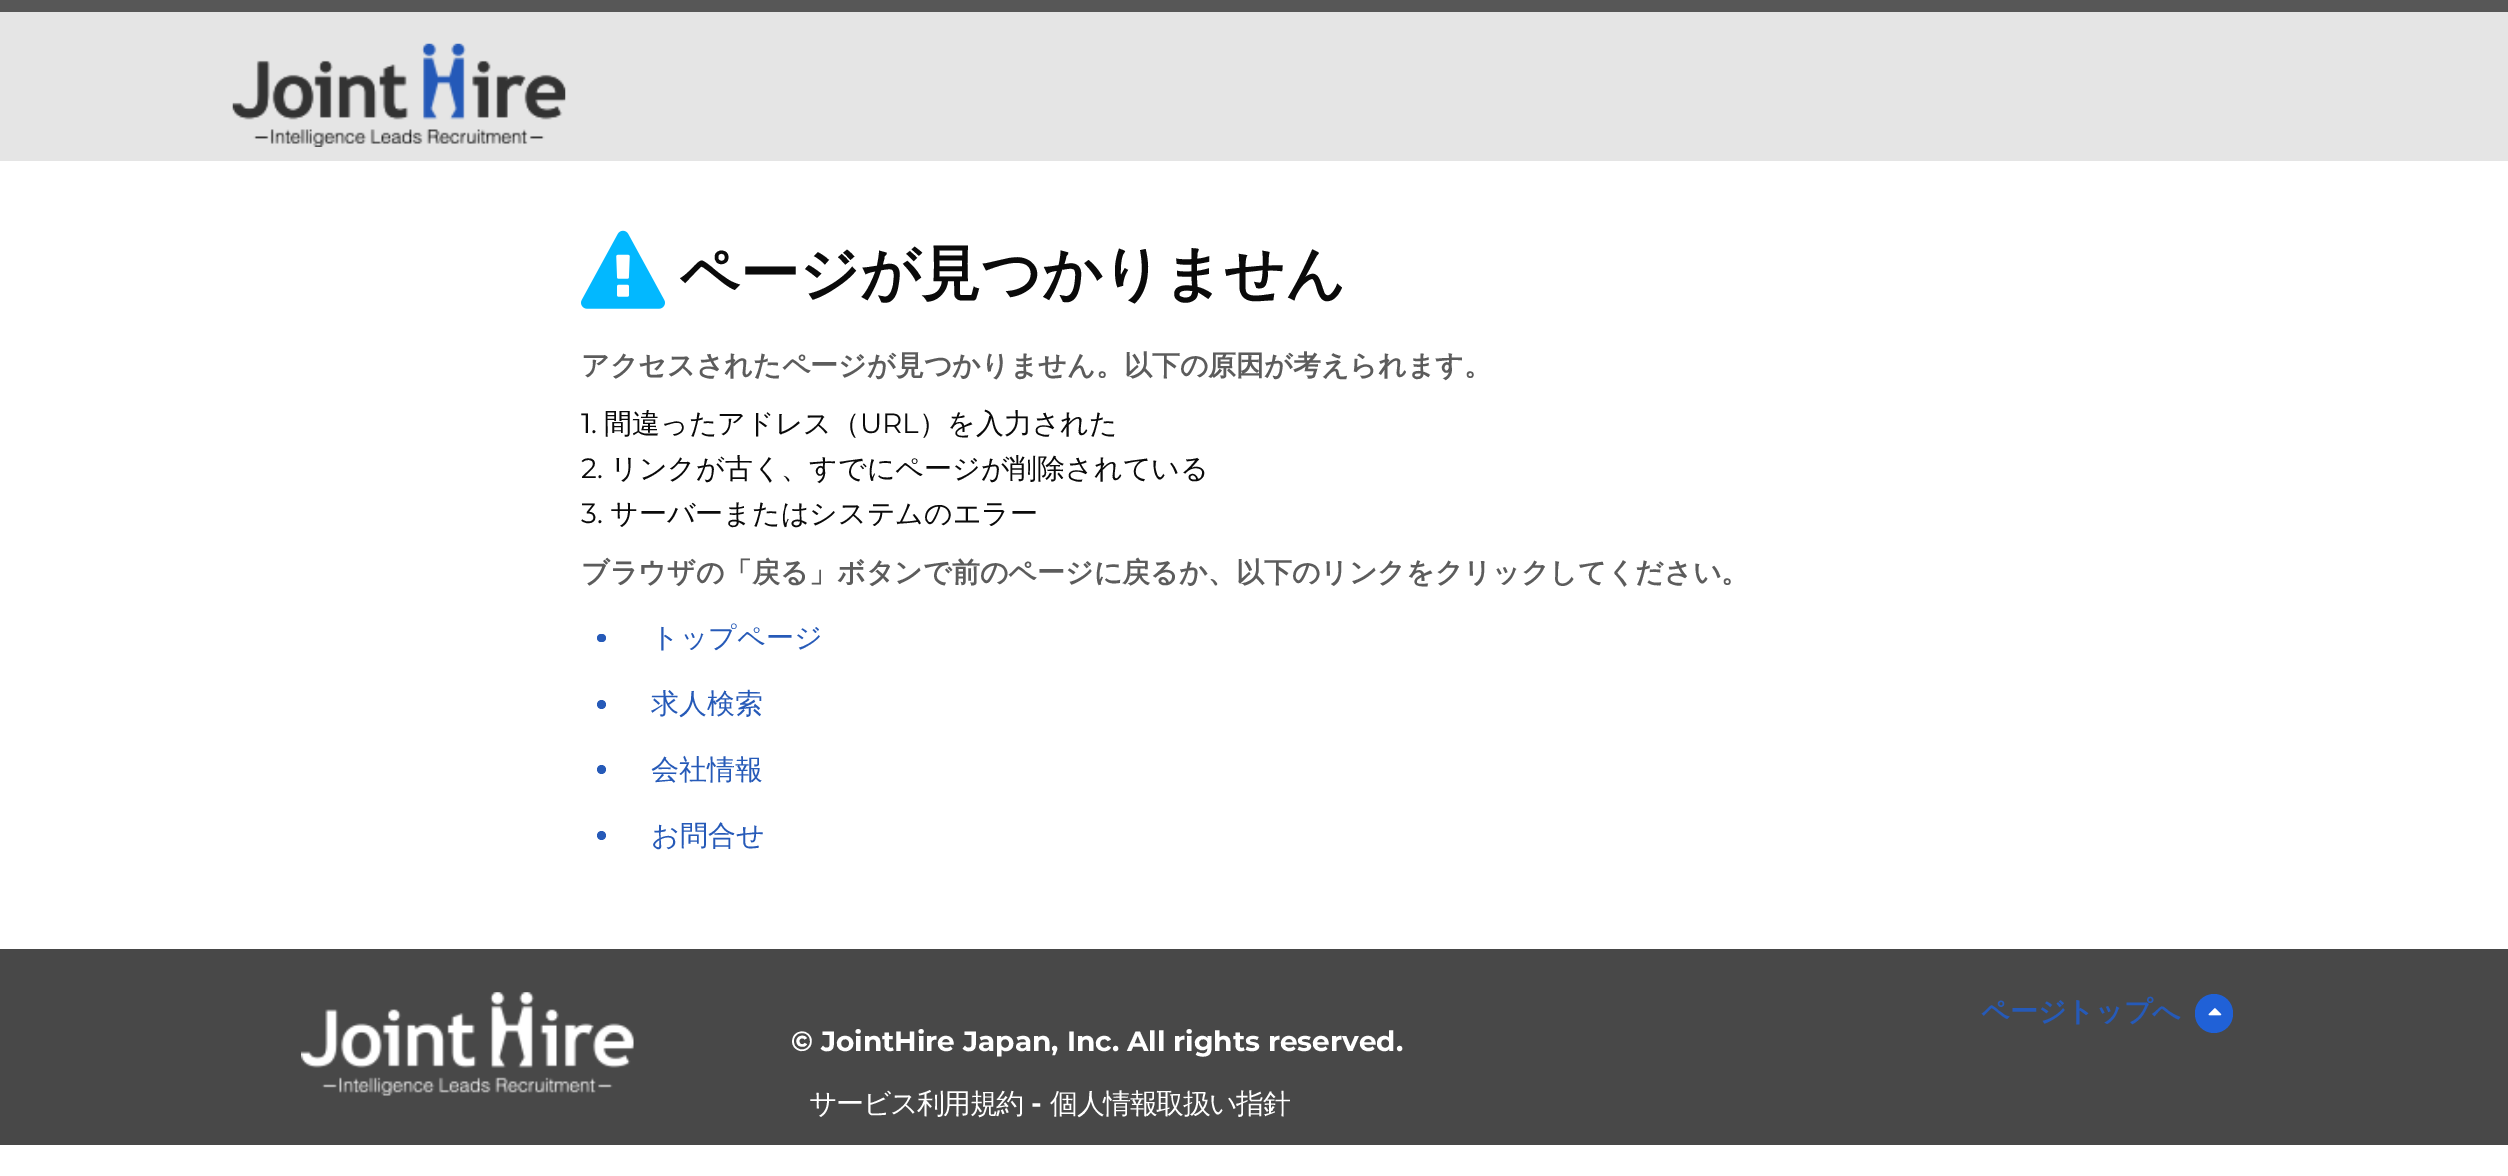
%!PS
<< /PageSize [2508 1176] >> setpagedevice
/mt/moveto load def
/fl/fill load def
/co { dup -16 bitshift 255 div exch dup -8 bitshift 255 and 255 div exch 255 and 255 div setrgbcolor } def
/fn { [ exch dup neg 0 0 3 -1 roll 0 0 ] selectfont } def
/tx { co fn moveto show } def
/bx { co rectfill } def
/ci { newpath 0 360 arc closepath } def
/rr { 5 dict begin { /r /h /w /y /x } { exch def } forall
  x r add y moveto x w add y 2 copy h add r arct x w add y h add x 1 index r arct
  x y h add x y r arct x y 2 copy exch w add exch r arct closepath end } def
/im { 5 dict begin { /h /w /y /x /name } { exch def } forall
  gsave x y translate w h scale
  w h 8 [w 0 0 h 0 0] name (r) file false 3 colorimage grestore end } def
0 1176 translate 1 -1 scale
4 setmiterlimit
0 0 2508 1176 16#FFFFFF bx
0 0 2508 12 16#575757 bx
0 12 2508 149 16#E5E5E5 bx
(media/1.raw) 232 43 334 104 im
(media/2.raw) 581 230 84 79 im
16#265AB8 co
597 634 9 8 4 rr fl
601.5 704.5 4.5 ci fl
601.5 769.5 4.5 ci fl
601.5 835.5 4.5 ci fl
0 949 2508 196 16#484848 bx
(media/3.raw) 301 992 333 104 im
16#2061D7 co
2195 994 38 39 19 rr fl
(media/4.raw) 2208 1008 14 8 im
(ページが見つかりません) 679 294 /WenQuanYiZenHei-Bold 59.5 16#0A0A0A tx
(アクセスされたページが見つかりません。以下の原因が考えられます。) 581 375 /WenQuanYiZenHei-Bold 28 16#5C5C5C tx
(1.) 581 433 /Montserrat-Regular 28 16#0A0A0A tx
(間違ったアドレス（) 604 433 /WenQuanYiZenHei-Medium 28 16#0A0A0A tx
(URL) 860 433 /Montserrat-Regular 28 16#0A0A0A tx
(）を入力された) 919 433 /WenQuanYiZenHei-Medium 28 16#0A0A0A tx
(2.) 581 478 /Montserrat-Regular 28 16#0A0A0A tx
(リンクが古く、すでにページが削除されている) 610 478 /WenQuanYiZenHei-Medium 28 16#0A0A0A tx
(3.) 581 523 /Montserrat-Regular 28 16#0A0A0A tx
(サーバーまたはシステムのエラー) 610 523 /WenQuanYiZenHei-Medium 28 16#0A0A0A tx
(ブラウザの「戻る」ボタンで前のページに戻るか、以下のリンクをクリックしてください。) 581 582 /WenQuanYiZenHei-Bold 28 16#5C5C5C tx
(トップページ) 651 647 /WenQuanYiZenHei-Medium 28 16#265AB8 tx
(求人検索) 651 713 /WenQuanYiZenHei-Medium 28 16#265AB8 tx
(会社情報) 651 779 /WenQuanYiZenHei-Medium 28 16#265AB8 tx
(お問合せ) 651 845 /WenQuanYiZenHei-Medium 28 16#265AB8 tx
(ページトップへ) 1981 1021 /WenQuanYiZenHei-Bold 28 16#265AB8 tx
(© JointHire Japan, Inc. All rights reserved.) 791 1051 /Montserrat-Bold 28 16#FFFFFF tx
/WenQuanYiZenHei-Medium 28 fn
809 1113 mt -1.5 0 (サービス利用規約) ashow
(-) 1031 1113 /Montserrat-Bold 28 16#FFFFFF tx
/WenQuanYiZenHei-Medium 28 fn
1050 1113 mt -1.5 0 (個人情報取扱い指針) ashow
showpage
